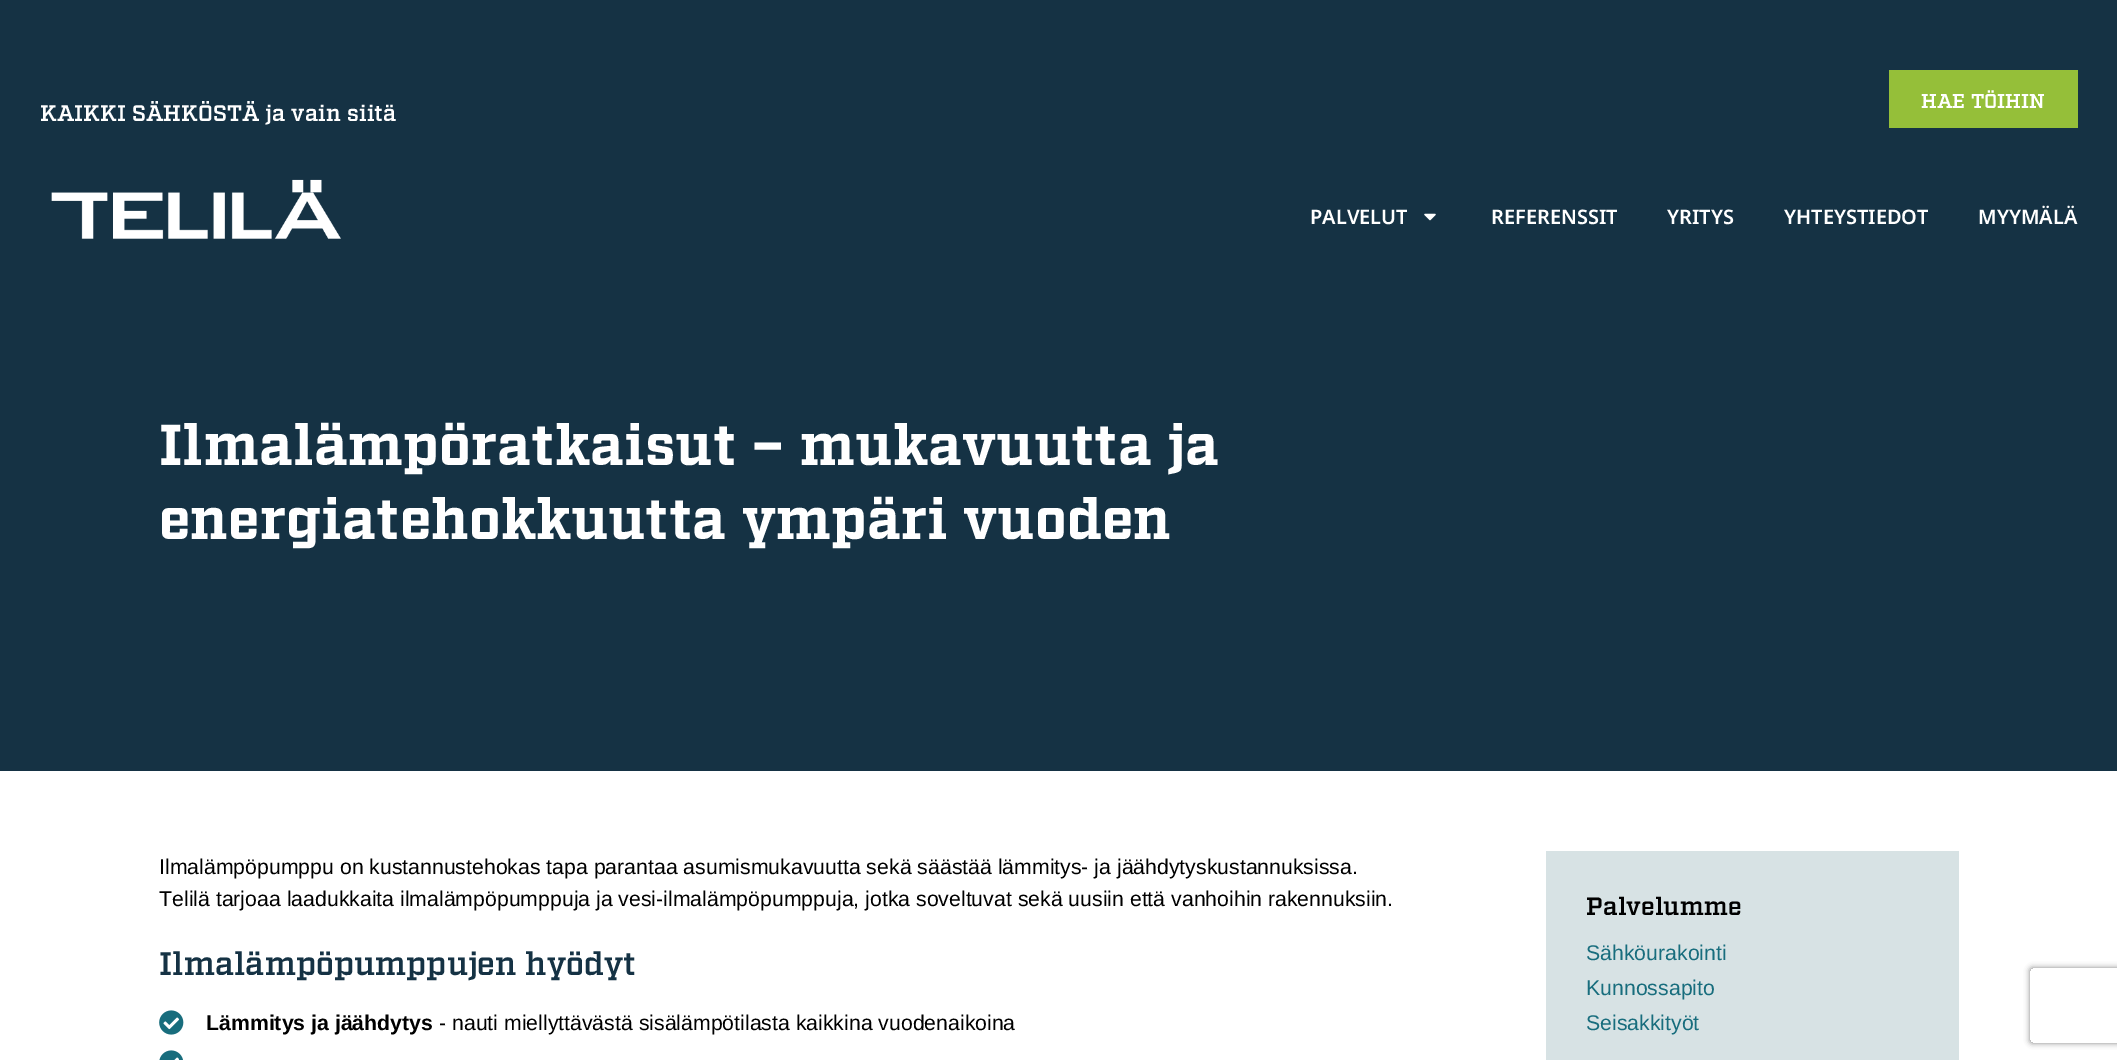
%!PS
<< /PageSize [2117 1060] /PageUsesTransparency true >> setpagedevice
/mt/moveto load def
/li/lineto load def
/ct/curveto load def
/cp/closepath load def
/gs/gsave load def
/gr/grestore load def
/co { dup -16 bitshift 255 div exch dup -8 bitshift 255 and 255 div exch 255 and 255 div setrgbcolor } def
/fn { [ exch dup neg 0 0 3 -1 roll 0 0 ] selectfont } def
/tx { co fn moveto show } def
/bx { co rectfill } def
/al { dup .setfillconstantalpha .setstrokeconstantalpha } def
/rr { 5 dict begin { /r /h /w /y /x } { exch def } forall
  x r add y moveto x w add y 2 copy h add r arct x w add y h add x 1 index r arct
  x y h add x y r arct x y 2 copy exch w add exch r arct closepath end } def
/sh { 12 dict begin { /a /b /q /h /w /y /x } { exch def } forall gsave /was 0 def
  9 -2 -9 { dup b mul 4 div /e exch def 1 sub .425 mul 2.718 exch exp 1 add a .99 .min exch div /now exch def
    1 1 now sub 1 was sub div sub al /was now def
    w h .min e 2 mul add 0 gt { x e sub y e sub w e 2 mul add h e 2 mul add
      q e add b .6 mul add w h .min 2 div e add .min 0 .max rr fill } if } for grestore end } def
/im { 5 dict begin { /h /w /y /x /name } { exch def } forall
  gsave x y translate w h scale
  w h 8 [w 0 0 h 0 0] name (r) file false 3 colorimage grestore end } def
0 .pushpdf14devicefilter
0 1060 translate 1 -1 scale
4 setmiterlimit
0 0 2117 1060 16#FFFFFF bx
0 0 2117 771 16#153244 bx
1889 70 189 58 16#95BF39 bx
(media/1.raw) 51 179 290 60 im
(media/2.raw) 1424 213 12 8 im
(media/3.raw) 159 1010 25 25 im
(media/4.raw) 159 1050 24 10 im
1546 851 413 209 16#D7E2E4 bx
gs
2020 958 mt 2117 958 li 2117 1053 li 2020 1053 li cp 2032.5 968 mt 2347.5 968 li 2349 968 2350 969 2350 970.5 ct 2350 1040.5 li 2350 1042 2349 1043 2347.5 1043 ct 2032.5 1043 li 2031 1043 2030 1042 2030 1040.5 ct 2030 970.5 li 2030 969 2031 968 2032.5 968 ct cp eoclip newpath
16#808080 co
2030 968 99 75 2.5 3 1 sh
gr
(HAE TÖIHIN) 1921 108 /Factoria-SemiBold 20 16#FFFFFF tx
(KAIKKI SÄHKÖSTÄ ja vain siitä) 40 121 /Factoria-SemiBold 22.5 16#FFFFFF tx
(PALVELUT) 1310 224 /NotoSans-SemiBold 20 16#FFFFFF tx
(REFERENSSIT) 1491 224 /NotoSans-SemiBold 20 16#FFFFFF tx
(YRITYS) 1667 224 /NotoSans-SemiBold 20 16#FFFFFF tx
(YHTEYSTIEDOT) 1784 224 /NotoSans-SemiBold 20 16#FFFFFF tx
(MYYMÄLÄ) 1978 224 /NotoSans-SemiBold 20 16#FFFFFF tx
(Ilmalämpöratkaisut – mukavuutta ja) 159 465 /Factoria-Bold 57.5 16#FFFFFF tx
(energiatehokkuutta ympäri vuoden) 159 539 /Factoria-Bold 57.5 16#FFFFFF tx
(Ilmalämpöpumppu on kustannustehokas tapa parantaa asumismukavuutta sekä säästää lämmitys- ja jäähdytyskustannuksissa.) 159 874 /LiberationSans-Regular 21.25 16#000000 tx
(Telilä tarjoaa laadukkaita ilmalämpöpumppuja ja vesi-ilmalämpöpumppuja, jotka soveltuvat sekä uusiin että vanhoihin rakennuksiin.) 159 906 /LiberationSans-Regular 21.25 16#000000 tx
(Ilmalämpöpumppujen hyödyt) 159 975 /Factoria-SemiBold 32.5 16#153244 tx
(Lämmitys ja jäähdytys) 206 1030 /LiberationSans-Bold 21.25 16#000000 tx
(- nauti miellyttävästä sisälämpötilasta kaikkina vuodenaikoina) 439 1030 /LiberationSans-Regular 21.25 16#000000 tx
(Palvelumme) 1586 915 /Factoria-SemiBold 25 16#000000 tx
(Sähköurakointi) 1586 960 /LiberationSans-Regular 21.25 16#186D7D tx
(Kunnossapito) 1586 995 /LiberationSans-Regular 21.25 16#186D7D tx
(Seisakkityöt) 1586 1030 /LiberationSans-Regular 21.25 16#186D7D tx
.poppdf14devicefilter showpage
